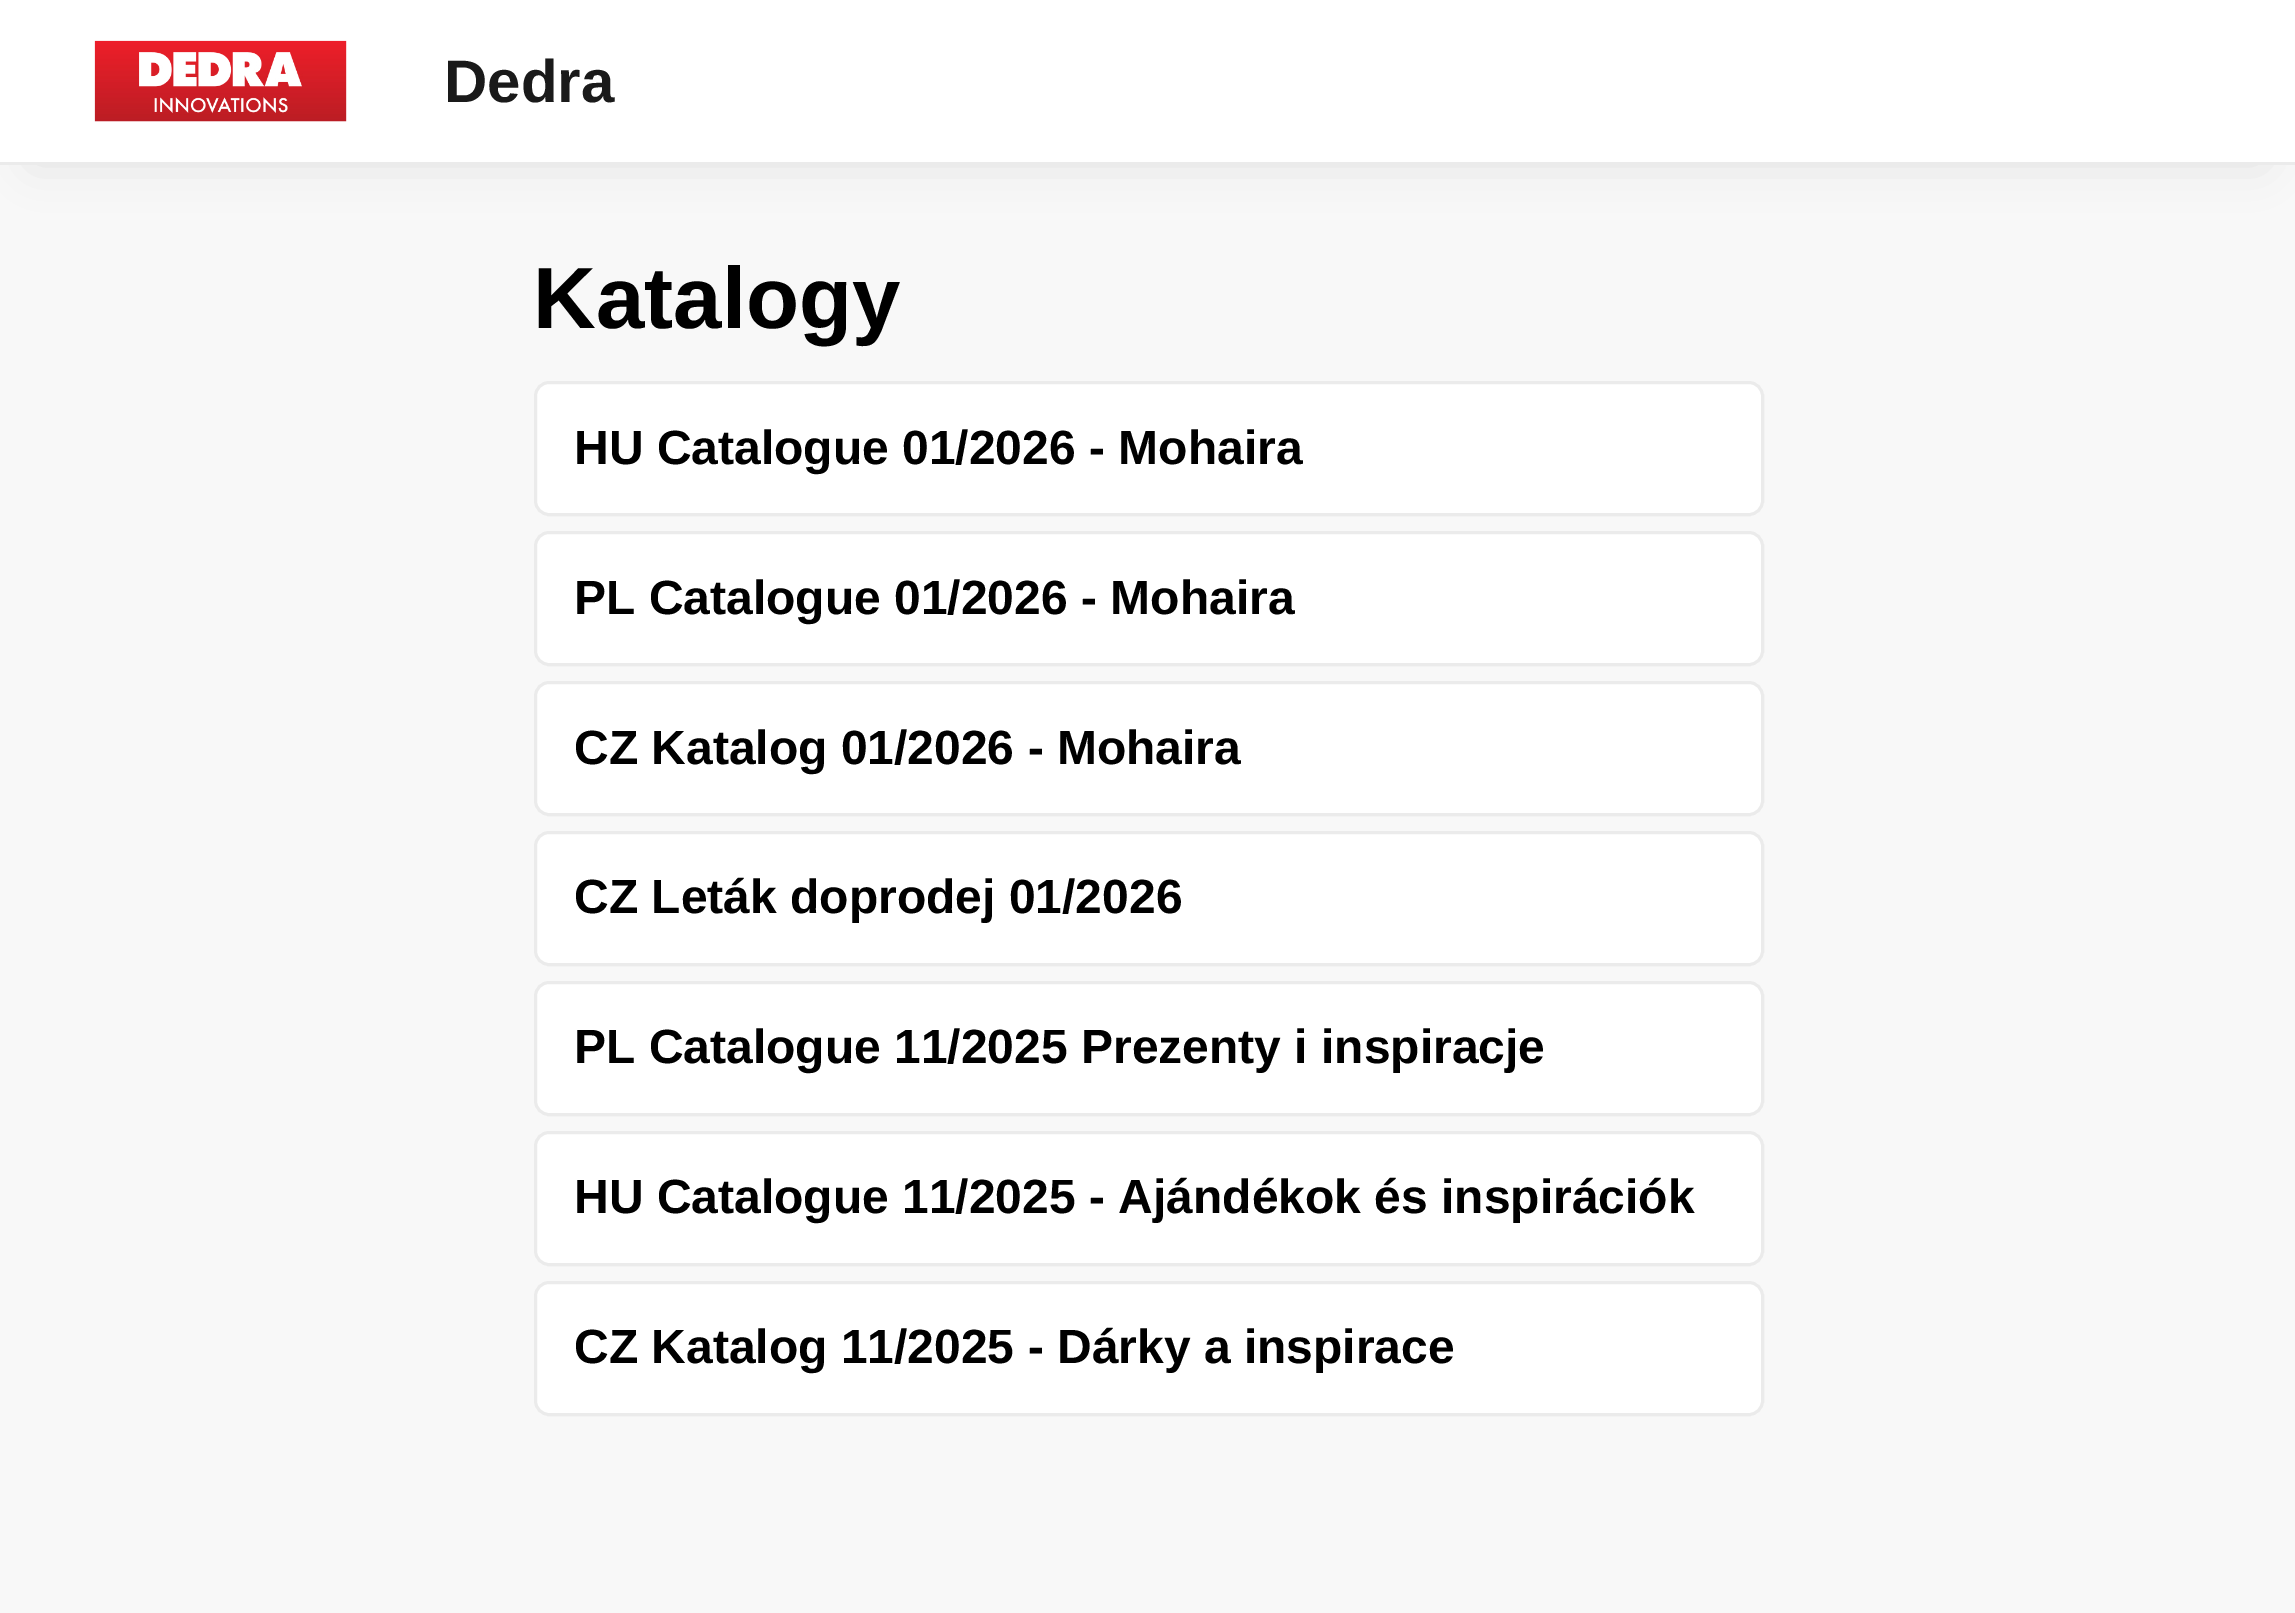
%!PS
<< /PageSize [2295 1613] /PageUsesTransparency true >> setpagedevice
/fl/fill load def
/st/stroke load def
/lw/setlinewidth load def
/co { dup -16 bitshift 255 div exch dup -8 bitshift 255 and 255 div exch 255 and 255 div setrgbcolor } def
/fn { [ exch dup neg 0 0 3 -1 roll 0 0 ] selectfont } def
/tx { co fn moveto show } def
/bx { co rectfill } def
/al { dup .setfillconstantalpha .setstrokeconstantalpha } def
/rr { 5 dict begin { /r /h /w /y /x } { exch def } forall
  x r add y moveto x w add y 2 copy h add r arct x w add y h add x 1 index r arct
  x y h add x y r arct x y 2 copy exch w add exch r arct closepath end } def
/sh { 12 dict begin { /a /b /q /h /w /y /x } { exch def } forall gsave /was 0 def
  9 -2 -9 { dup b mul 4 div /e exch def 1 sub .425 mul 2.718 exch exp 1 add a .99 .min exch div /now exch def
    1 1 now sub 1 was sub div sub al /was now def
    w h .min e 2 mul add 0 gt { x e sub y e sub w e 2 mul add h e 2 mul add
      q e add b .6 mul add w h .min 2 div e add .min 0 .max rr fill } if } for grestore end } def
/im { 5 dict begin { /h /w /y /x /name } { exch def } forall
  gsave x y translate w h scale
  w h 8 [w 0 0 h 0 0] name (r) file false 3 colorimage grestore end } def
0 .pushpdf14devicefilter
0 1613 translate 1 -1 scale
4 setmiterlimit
0 0 2295 1613 16#F8F8F8 bx
16#000000 co
33 63 2229 99 0 22.5 .1 sh
0 0 2295 162 16#FFFFFF bx
0 162 2295 3 16#EBEBEB bx
(media/1.raw) 94 40 253 82 im
16#FFFFFF co
534 381 1230 135 15 rr fl
0.08 al
16#000000 co
3 lw
535.5 382.5 1227 132 13.5 rr st
1 al
16#FFFFFF co
534 531 1230 135 15 rr fl
0.08 al
16#000000 co
535.5 532.5 1227 132 13.5 rr st
1 al
16#FFFFFF co
534 681 1230 135 15 rr fl
0.08 al
16#000000 co
535.5 682.5 1227 132 13.5 rr st
1 al
16#FFFFFF co
534 831 1230 135 15 rr fl
0.08 al
16#000000 co
535.5 832.5 1227 132 13.5 rr st
1 al
16#FFFFFF co
534 981 1230 135 15 rr fl
0.08 al
16#000000 co
535.5 982.5 1227 132 13.5 rr st
1 al
16#FFFFFF co
534 1131 1230 135 15 rr fl
0.08 al
16#000000 co
535.5 1132.5 1227 132 13.5 rr st
1 al
16#FFFFFF co
534 1281 1230 135 15 rr fl
0.08 al
16#000000 co
535.5 1282.5 1227 132 13.5 rr st
1 al
(Dedra) 444 102 /LiberationSans-Bold 60 16#1A1A1A tx
(Katalogy) 533 328 /LiberationSans-Bold 87 16#000000 tx
(HU Catalogue 01/2026 - Mohaira) 574 464 /LiberationSans-Bold 48 16#000000 tx
(PL Catalogue 01/2026 - Mohaira) 574 614 /LiberationSans-Bold 48 16#000000 tx
(CZ Katalog 01/2026 - Mohaira) 574 764 /LiberationSans-Bold 48 16#000000 tx
(CZ Leták doprodej 01/2026) 574 913 /LiberationSans-Bold 48 16#000000 tx
(PL Catalogue 11/2025 Prezenty i inspiracje) 574 1063 /LiberationSans-Bold 48 16#000000 tx
(HU Catalogue 11/2025 - Ajándékok és inspirációk) 574 1213 /LiberationSans-Bold 48 16#000000 tx
(CZ Katalog 11/2025 - Dárky a inspirace) 574 1363 /LiberationSans-Bold 48 16#000000 tx
.poppdf14devicefilter showpage
